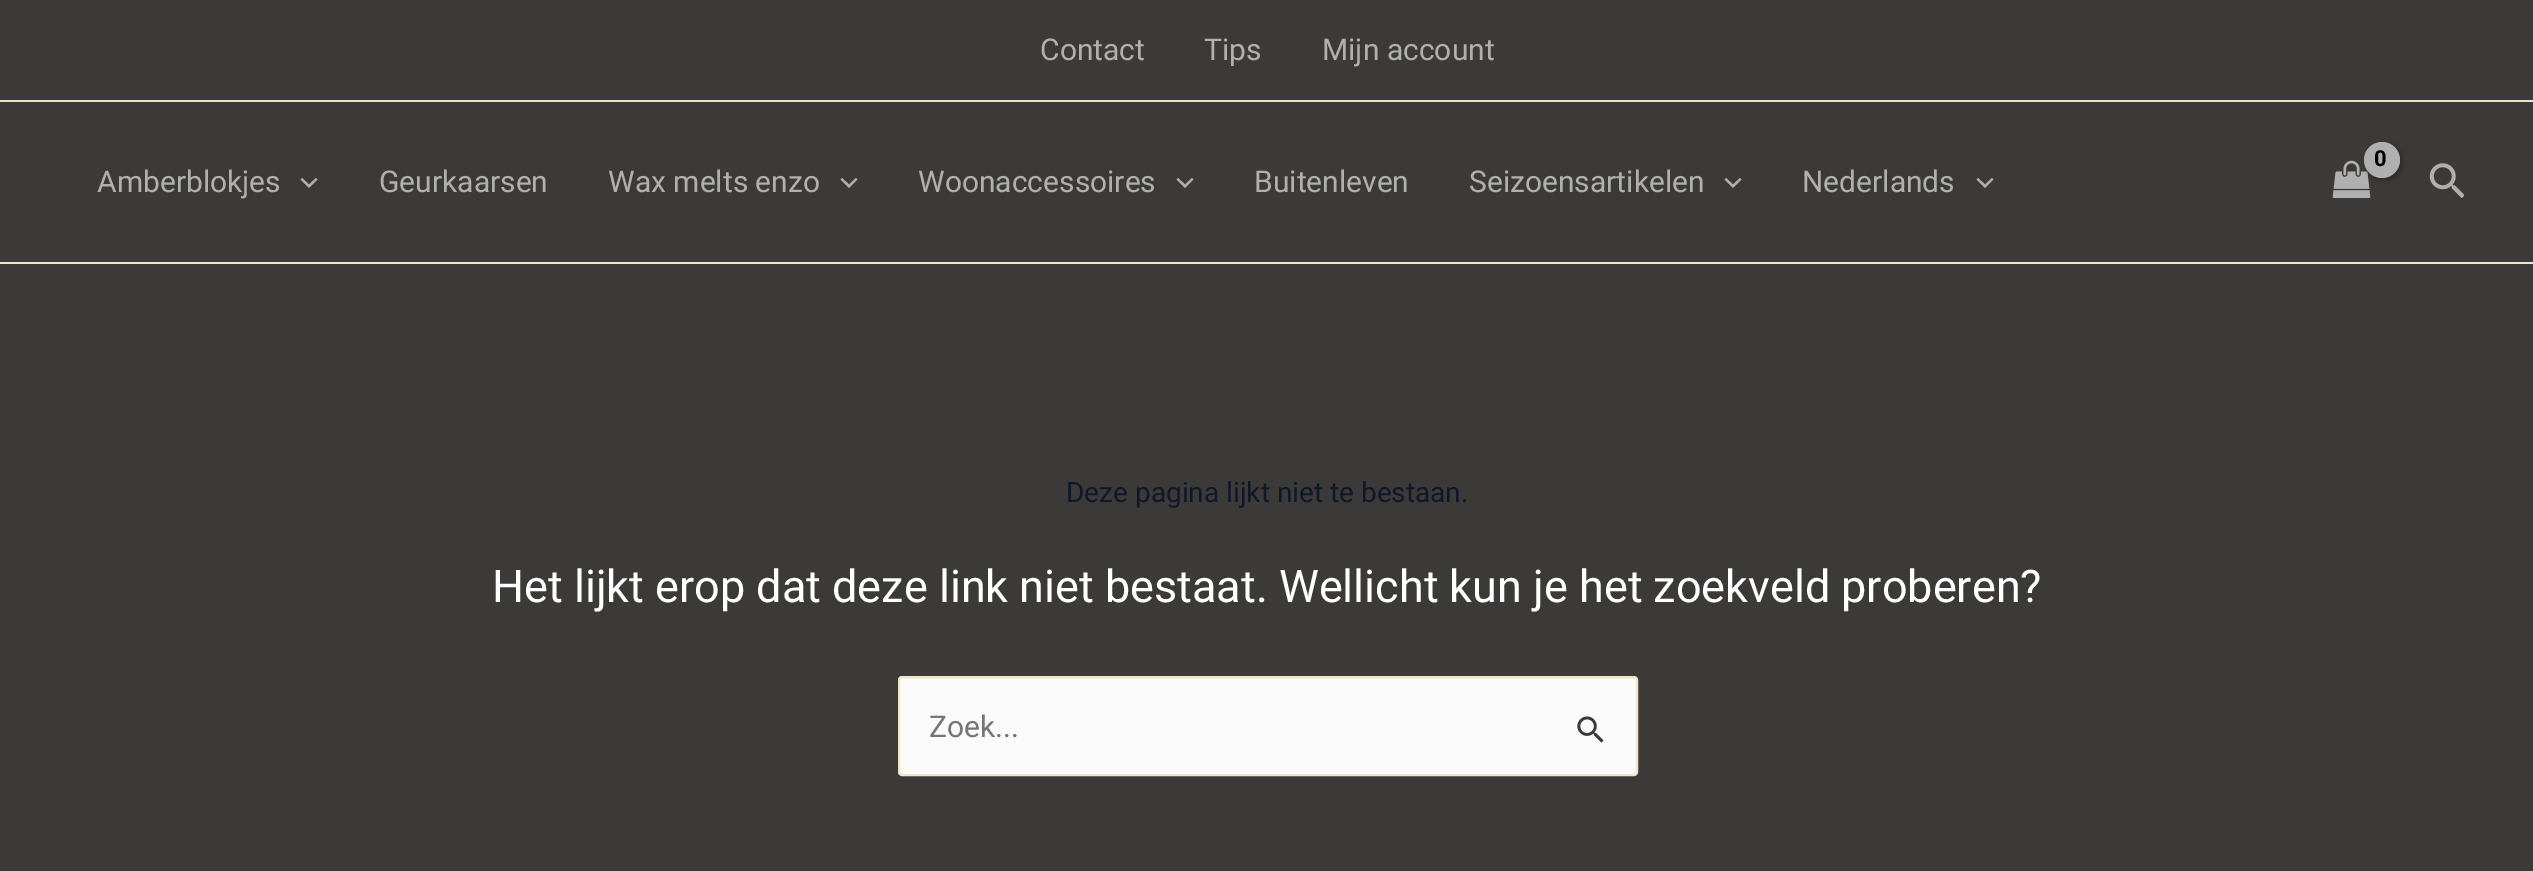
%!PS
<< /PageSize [2533 871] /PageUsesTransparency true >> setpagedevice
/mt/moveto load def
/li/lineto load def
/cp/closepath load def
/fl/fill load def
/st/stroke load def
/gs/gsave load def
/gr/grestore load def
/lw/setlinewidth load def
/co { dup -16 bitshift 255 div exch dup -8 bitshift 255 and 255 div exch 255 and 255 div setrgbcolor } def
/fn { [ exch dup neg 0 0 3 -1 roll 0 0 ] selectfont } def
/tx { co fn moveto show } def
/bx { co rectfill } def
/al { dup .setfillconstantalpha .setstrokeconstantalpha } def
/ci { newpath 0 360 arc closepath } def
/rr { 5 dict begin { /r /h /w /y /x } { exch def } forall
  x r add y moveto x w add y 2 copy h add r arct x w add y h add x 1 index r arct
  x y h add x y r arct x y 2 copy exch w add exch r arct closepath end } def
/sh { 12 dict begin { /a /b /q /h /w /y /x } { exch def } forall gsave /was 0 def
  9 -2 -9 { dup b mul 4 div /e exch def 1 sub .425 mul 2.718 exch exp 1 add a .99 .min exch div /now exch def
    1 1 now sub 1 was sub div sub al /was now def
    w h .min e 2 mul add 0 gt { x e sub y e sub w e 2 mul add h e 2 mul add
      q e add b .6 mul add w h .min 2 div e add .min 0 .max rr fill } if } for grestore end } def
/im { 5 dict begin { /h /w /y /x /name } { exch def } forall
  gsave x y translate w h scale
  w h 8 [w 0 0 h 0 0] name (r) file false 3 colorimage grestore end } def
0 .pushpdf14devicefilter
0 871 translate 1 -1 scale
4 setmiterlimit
0 0 2533 871 16#3B3A38 bx
0 100 2533 2 16#F0E6C5 bx
0 262 2533 2 16#F0E6C5 bx
(media/1.raw) 2332 160 39 38 im
16#000000 co
2366 144 36 36 18 3 .3 sh
16#B0B0B0 co
2382 160 18 ci fl
(media/2.raw) 2429 163 35 36 im
300.5 179.5 mt 309 188 li 317.5 179.5 li 316 178 li 309 184.5 li 302 178 li cp fl
840.5 179.5 mt 849 188 li 857.5 179.5 li 856 178 li 849 184.5 li 842 178 li cp fl
1176.5 179.5 mt 1185 188 li 1193.5 179.5 li 1192 178 li 1185 184.5 li 1178 178 li cp fl
1724.5 179.5 mt 1733 188 li 1741.5 179.5 li 1740 178 li 1733 184.5 li 1726 178 li cp fl
1976.5 179.5 mt 1985 188 li 1993.5 179.5 li 1992 178 li 1985 184.5 li 1978 178 li cp fl
16#FAFAFA co
899 677 738 98 3 rr gs fl gr
16#F0E6C5 co
2 lw
st
(media/3.raw) 1577 716 27 27 im
(Contact) 1040 60 /Roboto-Regular 30 16#B0B0B0 tx
(Tips) 1204 60 /Roboto-Regular 30 16#B0B0B0 tx
(Mijn account) 1322 60 /Roboto-Regular 30 16#B0B0B0 tx
/Roboto-Bold 22 fn
16#000000 co
2374 166 mt -1 0 (0) ashow
(Amberblokjes) 97 192 /Roboto-Regular 30 16#B0B0B0 tx
(Geurkaarsen) 379 192 /Roboto-Regular 30 16#B0B0B0 tx
(Wax melts enzo) 608 192 /Roboto-Regular 30 16#B0B0B0 tx
(Woonaccessoires) 918 192 /Roboto-Regular 30 16#B0B0B0 tx
(Buitenleven) 1254 192 /Roboto-Regular 30 16#B0B0B0 tx
(Seizoensartikelen) 1469 192 /Roboto-Regular 30 16#B0B0B0 tx
(Nederlands) 1802 192 /Roboto-Regular 30 16#B0B0B0 tx
(Deze pagina lijkt niet te bestaan.) 1066 502 /Roboto-Regular 28 16#0F172A tx
(Het lijkt erop dat deze link niet bestaat. Wellicht kun je het zoekveld proberen?) 492 602 /Roboto-Regular 45 16#FFFFFF tx
(Zoek...) 929 737 /Roboto-Regular 30 16#757575 tx
.poppdf14devicefilter showpage
